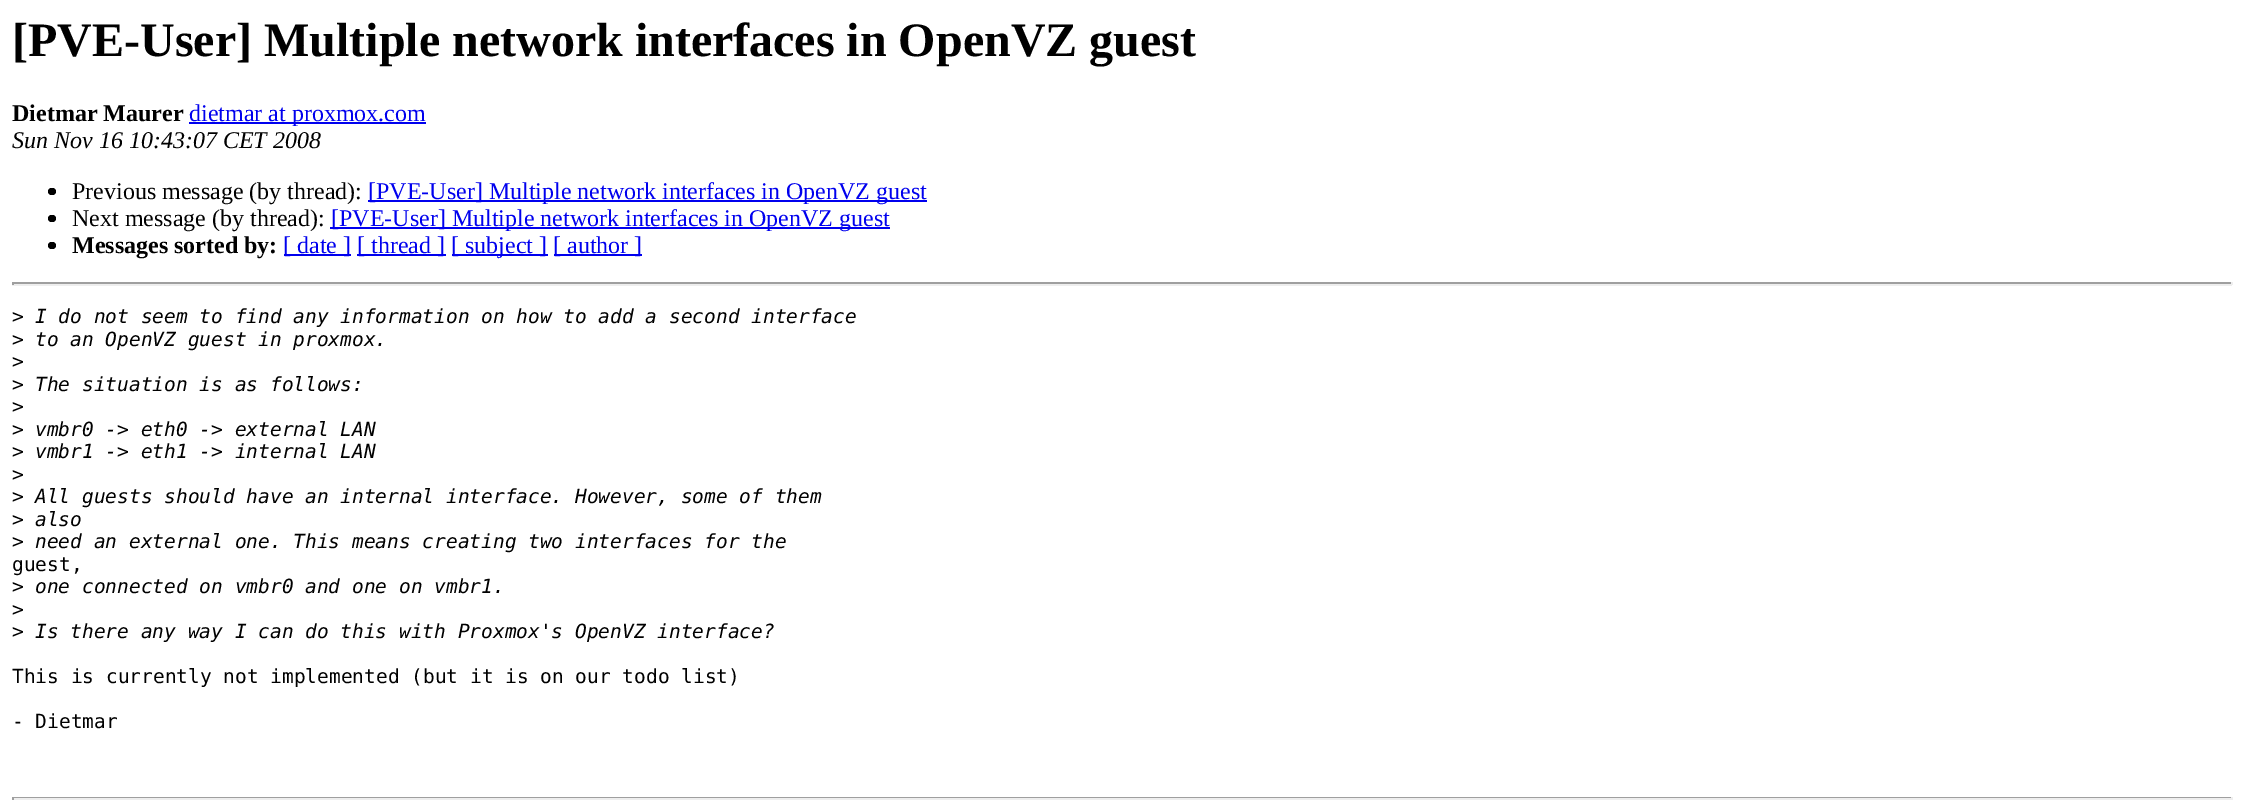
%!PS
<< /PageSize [2244 812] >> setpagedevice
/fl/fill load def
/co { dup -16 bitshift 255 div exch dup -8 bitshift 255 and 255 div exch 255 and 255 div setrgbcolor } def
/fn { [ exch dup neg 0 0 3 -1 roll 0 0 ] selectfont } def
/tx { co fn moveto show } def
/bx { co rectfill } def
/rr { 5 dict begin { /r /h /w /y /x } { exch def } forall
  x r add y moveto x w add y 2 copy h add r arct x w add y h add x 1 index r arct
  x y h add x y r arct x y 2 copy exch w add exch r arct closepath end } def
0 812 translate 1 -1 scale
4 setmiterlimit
0 0 2244 812 16#FFFFFF bx
189 122 237 2 16#0000EE bx
16#000000 co
48 188 8 7 3.5 rr fl
368 200 559 2 16#0000EE bx
16#000000 co
48 215 8 7 3.5 rr fl
330 227 560 2 16#0000EE bx
16#000000 co
48 242 8 7 3.5 rr fl
284 254 67 2 16#0000EE bx
357 254 89 2 16#0000EE bx
452 254 96 2 16#0000EE bx
554 254 88 2 16#0000EE bx
12 282 2220 2 16#9F9F9F bx
2231 282 2 3 16#EEEEEE bx
12 284 2220 2 16#EEEEEE bx
12 282 2 3 16#9F9F9F bx
12 797 2220 1 16#9F9F9F bx
2231 797 2 3 16#EEEEEE bx
12 798 2220 2 16#EEEEEE bx
12 797 2 3 16#9F9F9F bx
([PVE-User] Multiple network interfaces in OpenVZ guest) 12 56 /LiberationSerif-Bold 48 16#000000 tx
(Dietmar Maurer) 12 121 /LiberationSerif-Bold 24 16#000000 tx
(dietmar at proxmox.com) 189 121 /LiberationSerif-Regular 24 16#0000EE tx
(Sun Nov 16 10:43:07 CET 2008) 12 148 /LiberationSerif-Italic 24 16#000000 tx
(Previous message \(by thread\):) 72 199 /LiberationSerif-Regular 24 16#000000 tx
([PVE-User] Multiple network interfaces in OpenVZ guest) 368 199 /LiberationSerif-Regular 24 16#0000EE tx
(Next message \(by thread\):) 72 226 /LiberationSerif-Regular 24 16#000000 tx
([PVE-User] Multiple network interfaces in OpenVZ guest) 331 226 /LiberationSerif-Regular 24 16#0000EE tx
(Messages sorted by:) 72 253 /LiberationSerif-Bold 24 16#000000 tx
([ date ]) 283 253 /LiberationSerif-Regular 24 16#0000EE tx
([ thread ]) 357 253 /LiberationSerif-Regular 24 16#0000EE tx
([ subject ]) 451 253 /LiberationSerif-Regular 24 16#0000EE tx
([ author ]) 553 253 /LiberationSerif-Regular 24 16#0000EE tx
(>) 12 323 /DejaVuSansMono-Regular 19.5 16#000000 tx
(I do not seem to find any information on how to add a second interface) 35 323 /DejaVuSansMono-Italic 19.5 16#000000 tx
(>) 12 346 /DejaVuSansMono-Regular 19.5 16#000000 tx
(to an OpenVZ guest in proxmox.) 35 346 /DejaVuSansMono-Italic 19.5 16#000000 tx
(>) 12 368 /DejaVuSansMono-Regular 19.5 16#000000 tx
(>) 12 391 /DejaVuSansMono-Regular 19.5 16#000000 tx
(The situation is as follows:) 35 391 /DejaVuSansMono-Italic 19.5 16#000000 tx
(>) 12 413 /DejaVuSansMono-Regular 19.5 16#000000 tx
(>) 12 436 /DejaVuSansMono-Regular 19.5 16#000000 tx
(vmbr0 -> eth0 -> external LAN) 35 436 /DejaVuSansMono-Italic 19.5 16#000000 tx
(>) 12 458 /DejaVuSansMono-Regular 19.5 16#000000 tx
(vmbr1 -> eth1 -> internal LAN) 35 458 /DejaVuSansMono-Italic 19.5 16#000000 tx
(>) 12 481 /DejaVuSansMono-Regular 19.5 16#000000 tx
(>) 12 503 /DejaVuSansMono-Regular 19.5 16#000000 tx
(All guests should have an internal interface. However, some of them) 35 503 /DejaVuSansMono-Italic 19.5 16#000000 tx
(>) 12 526 /DejaVuSansMono-Regular 19.5 16#000000 tx
(also) 35 526 /DejaVuSansMono-Italic 19.5 16#000000 tx
(>) 12 548 /DejaVuSansMono-Regular 19.5 16#000000 tx
(need an external one. This means creating two interfaces for the) 35 548 /DejaVuSansMono-Italic 19.5 16#000000 tx
(guest,) 12 571 /DejaVuSansMono-Regular 19.5 16#000000 tx
(>) 12 593 /DejaVuSansMono-Regular 19.5 16#000000 tx
(one connected on vmbr0 and one on vmbr1.) 35 593 /DejaVuSansMono-Italic 19.5 16#000000 tx
(>) 12 616 /DejaVuSansMono-Regular 19.5 16#000000 tx
(>) 12 638 /DejaVuSansMono-Regular 19.5 16#000000 tx
(Is there any way I can do this with Proxmox's OpenVZ interface?) 35 638 /DejaVuSansMono-Italic 19.5 16#000000 tx
(This is currently not implemented \(but it is on our todo list\)) 12 683 /DejaVuSansMono-Regular 19.5 16#000000 tx
(- Dietmar) 12 728 /DejaVuSansMono-Regular 19.5 16#000000 tx
showpage
